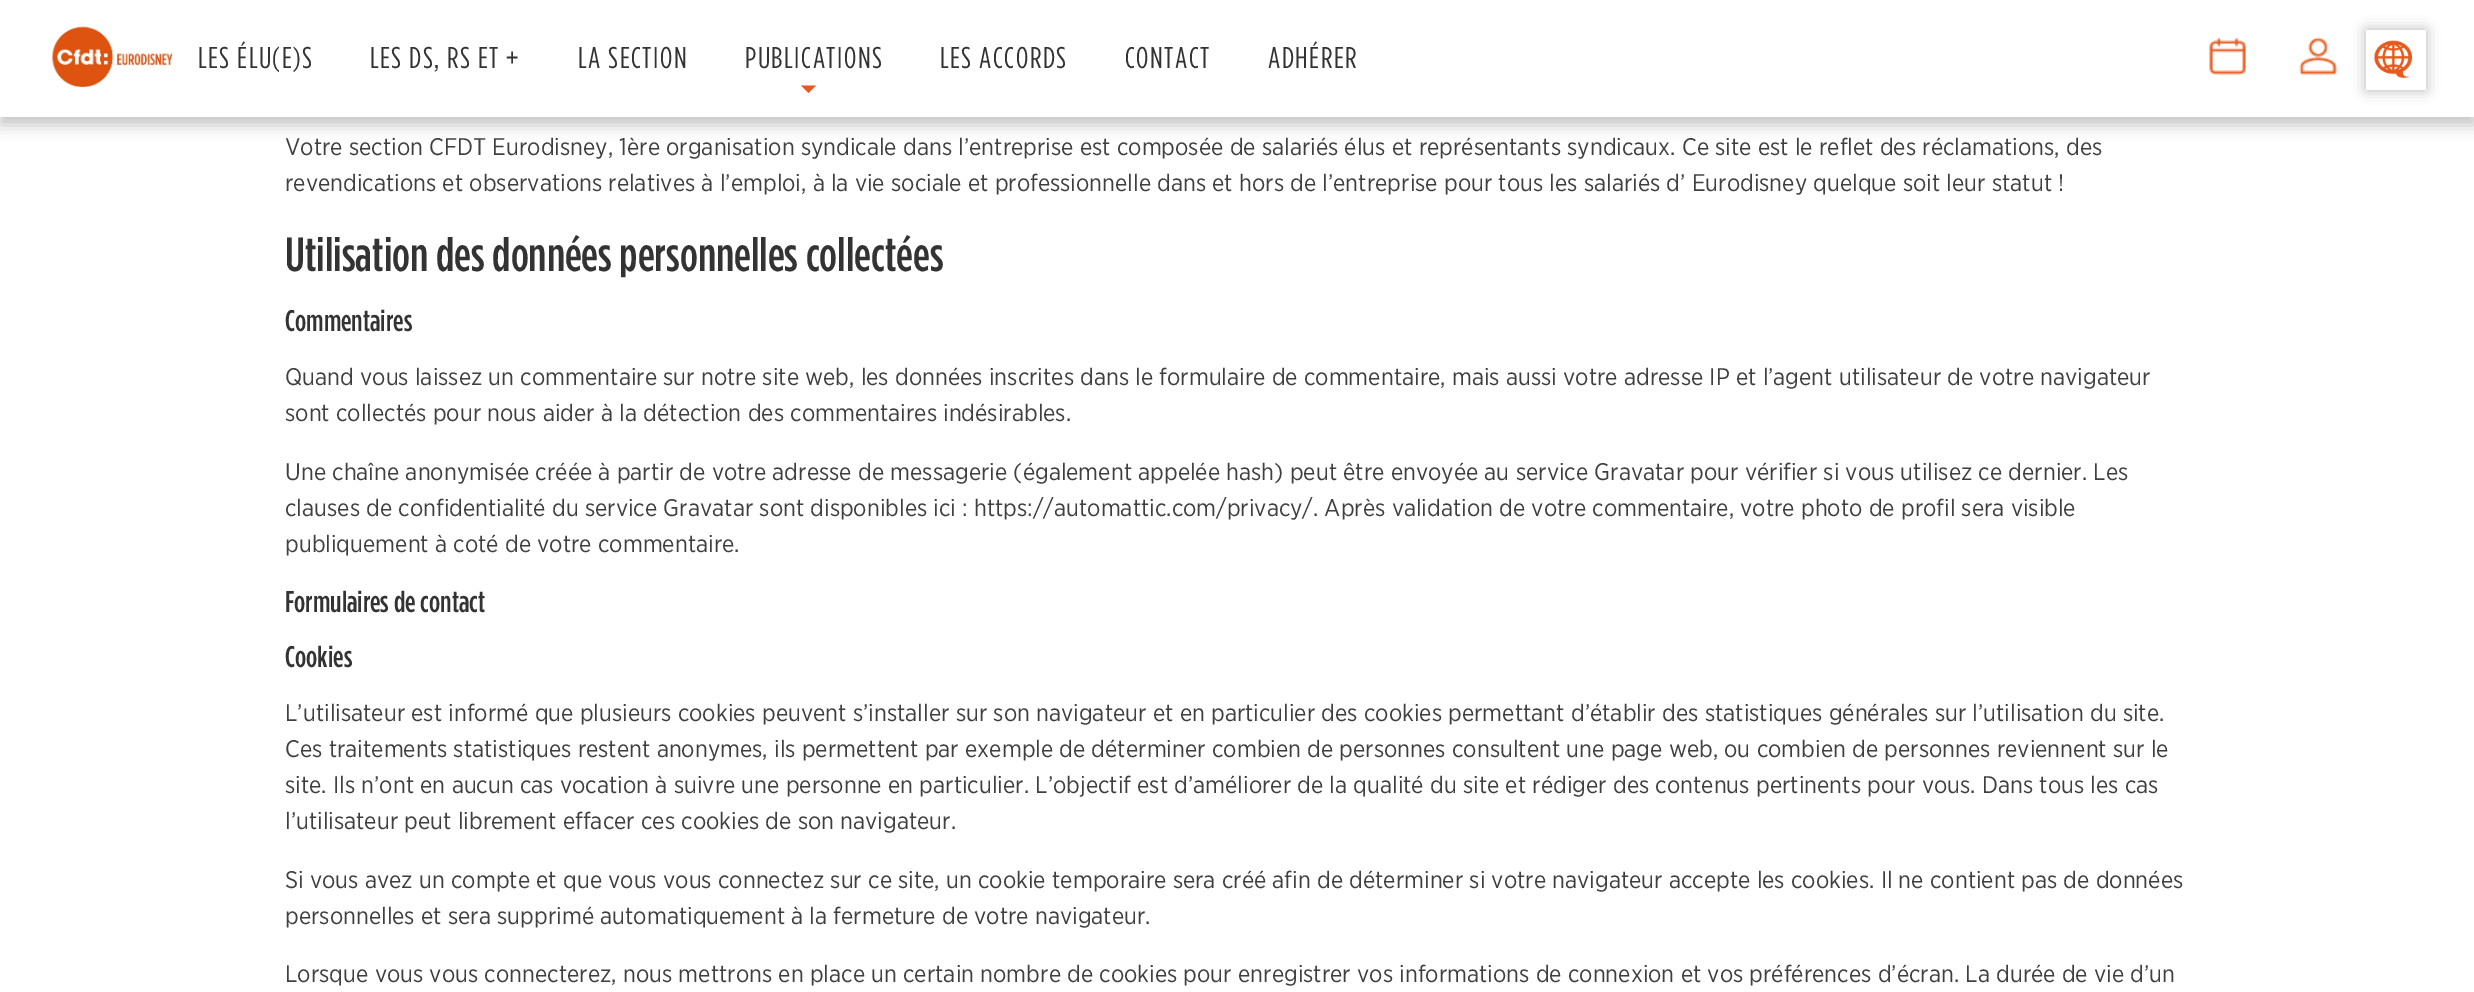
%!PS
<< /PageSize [2474 992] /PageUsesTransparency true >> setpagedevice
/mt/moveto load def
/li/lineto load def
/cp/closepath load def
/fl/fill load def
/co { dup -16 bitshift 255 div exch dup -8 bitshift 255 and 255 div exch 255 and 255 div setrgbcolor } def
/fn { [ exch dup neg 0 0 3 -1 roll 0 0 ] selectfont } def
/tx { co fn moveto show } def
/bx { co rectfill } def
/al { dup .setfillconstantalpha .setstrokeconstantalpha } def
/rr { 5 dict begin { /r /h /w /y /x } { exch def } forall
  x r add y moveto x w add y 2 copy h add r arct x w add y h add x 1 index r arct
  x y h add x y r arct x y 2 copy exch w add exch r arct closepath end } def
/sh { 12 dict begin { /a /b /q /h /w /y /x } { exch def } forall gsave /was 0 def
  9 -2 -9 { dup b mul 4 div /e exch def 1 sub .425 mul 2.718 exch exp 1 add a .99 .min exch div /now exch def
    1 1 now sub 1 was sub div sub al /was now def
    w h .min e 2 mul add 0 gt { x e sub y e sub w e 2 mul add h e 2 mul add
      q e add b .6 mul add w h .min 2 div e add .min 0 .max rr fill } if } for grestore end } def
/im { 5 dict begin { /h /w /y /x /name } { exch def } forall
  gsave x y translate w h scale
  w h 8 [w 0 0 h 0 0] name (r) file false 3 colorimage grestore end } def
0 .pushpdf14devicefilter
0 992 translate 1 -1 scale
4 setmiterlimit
0 0 2474 992 16#FFFFFF bx
16#353535 co
0 8 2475 117 0 7.5 .28 sh
0 0 2474 117 16#FFFFFF bx
(media/1.raw) 52 26 121 61 im
16#E7591C co
801 85.5 mt 816 85.5 li 808.5 93 li cp fl
(media/2.raw) 2209 37 37 38 im
(media/3.raw) 2299 37 38 38 im
16#000000 co
2366 30 60 60 0 7 .3 sh
2366 30 60 60 16#FFFFFF bx
(media/4.raw) 2374 40 38 38 im
/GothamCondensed-Regular 30 fn
16#333333 co
198 68 mt 1.5 0 (LES ÉLU\(E\)S) ashow
370 68 mt 1.5 0 (LES DS, RS ET +) ashow
578 68 mt 1.5 0 (LA SECTION) ashow
745 68 mt 1.5 0 (PUBLICATIONS) ashow
940 68 mt 1.5 0 (LES ACCORDS) ashow
1125 68 mt 1.5 0 (CONTACT) ashow
1268 68 mt 1.5 0 (ADHÉRER) ashow
(Votre section CFDT Eurodisney, 1ère organisation syndicale dans l’entreprise est composée de salariés élus et représentants syndicaux. Ce site est le reflet des réclamations, des) 285 155 /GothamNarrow-Regular 24 16#3F3F3F tx
(revendications et observations relatives à l’emploi, à la vie sociale et professionnelle dans et hors de l’entreprise pour tous les salariés d’ Eurodisney quelque soit leur statut !) 285 191 /GothamNarrow-Regular 24 16#3F3F3F tx
(Utilisation des données personnelles collectées) 285 271 /GothamCondensed-Medium 48 16#333333 tx
(Commentaires) 285 331 /GothamCondensed-Medium 30 16#333333 tx
(Quand vous laissez un commentaire sur notre site web, les données inscrites dans le formulaire de commentaire, mais aussi votre adresse IP et l’agent utilisateur de votre navigateur) 285 385 /GothamNarrow-Regular 24 16#3F3F3F tx
(sont collectés pour nous aider à la détection des commentaires indésirables.) 285 421 /GothamNarrow-Regular 24 16#3F3F3F tx
(Une chaîne anonymisée créée à partir de votre adresse de messagerie \(également appelée hash\) peut être envoyée au service Gravatar pour vérifier si vous utilisez ce dernier. Les) 285 480 /GothamNarrow-Regular 24 16#3F3F3F tx
(clauses de confidentialité du service Gravatar sont disponibles ici : https://automattic.com/privacy/. Après validation de votre commentaire, votre photo de profil sera visible) 285 516 /GothamNarrow-Regular 24 16#3F3F3F tx
(publiquement à coté de votre commentaire.) 285 552 /GothamNarrow-Regular 24 16#3F3F3F tx
(Formulaires de contact) 285 612 /GothamCondensed-Medium 30 16#333333 tx
(Cookies) 285 667 /GothamCondensed-Medium 30 16#333333 tx
(L’utilisateur est informé que plusieurs cookies peuvent s’installer sur son navigateur et en particulier des cookies permettant d’établir des statistiques générales sur l’utilisation du site.) 285 721 /GothamNarrow-Regular 24 16#3F3F3F tx
(Ces traitements statistiques restent anonymes, ils permettent par exemple de déterminer combien de personnes consultent une page web, ou combien de personnes reviennent sur le) 285 757 /GothamNarrow-Regular 24 16#3F3F3F tx
(site. Ils n’ont en aucun cas vocation à suivre une personne en particulier. L’objectif est d’améliorer de la qualité du site et rédiger des contenus pertinents pour vous. Dans tous les cas) 285 793 /GothamNarrow-Regular 24 16#3F3F3F tx
(l’utilisateur peut librement effacer ces cookies de son navigateur.) 285 829 /GothamNarrow-Regular 24 16#3F3F3F tx
(Si vous avez un compte et que vous vous connectez sur ce site, un cookie temporaire sera créé afin de déterminer si votre navigateur accepte les cookies. Il ne contient pas de données) 285 888 /GothamNarrow-Regular 24 16#3F3F3F tx
(personnelles et sera supprimé automatiquement à la fermeture de votre navigateur.) 285 924 /GothamNarrow-Regular 24 16#3F3F3F tx
(Lorsque vous vous connecterez, nous mettrons en place un certain nombre de cookies pour enregistrer vos informations de connexion et vos préférences d’écran. La durée de vie d’un) 285 982 /GothamNarrow-Regular 24 16#3F3F3F tx
.poppdf14devicefilter showpage
